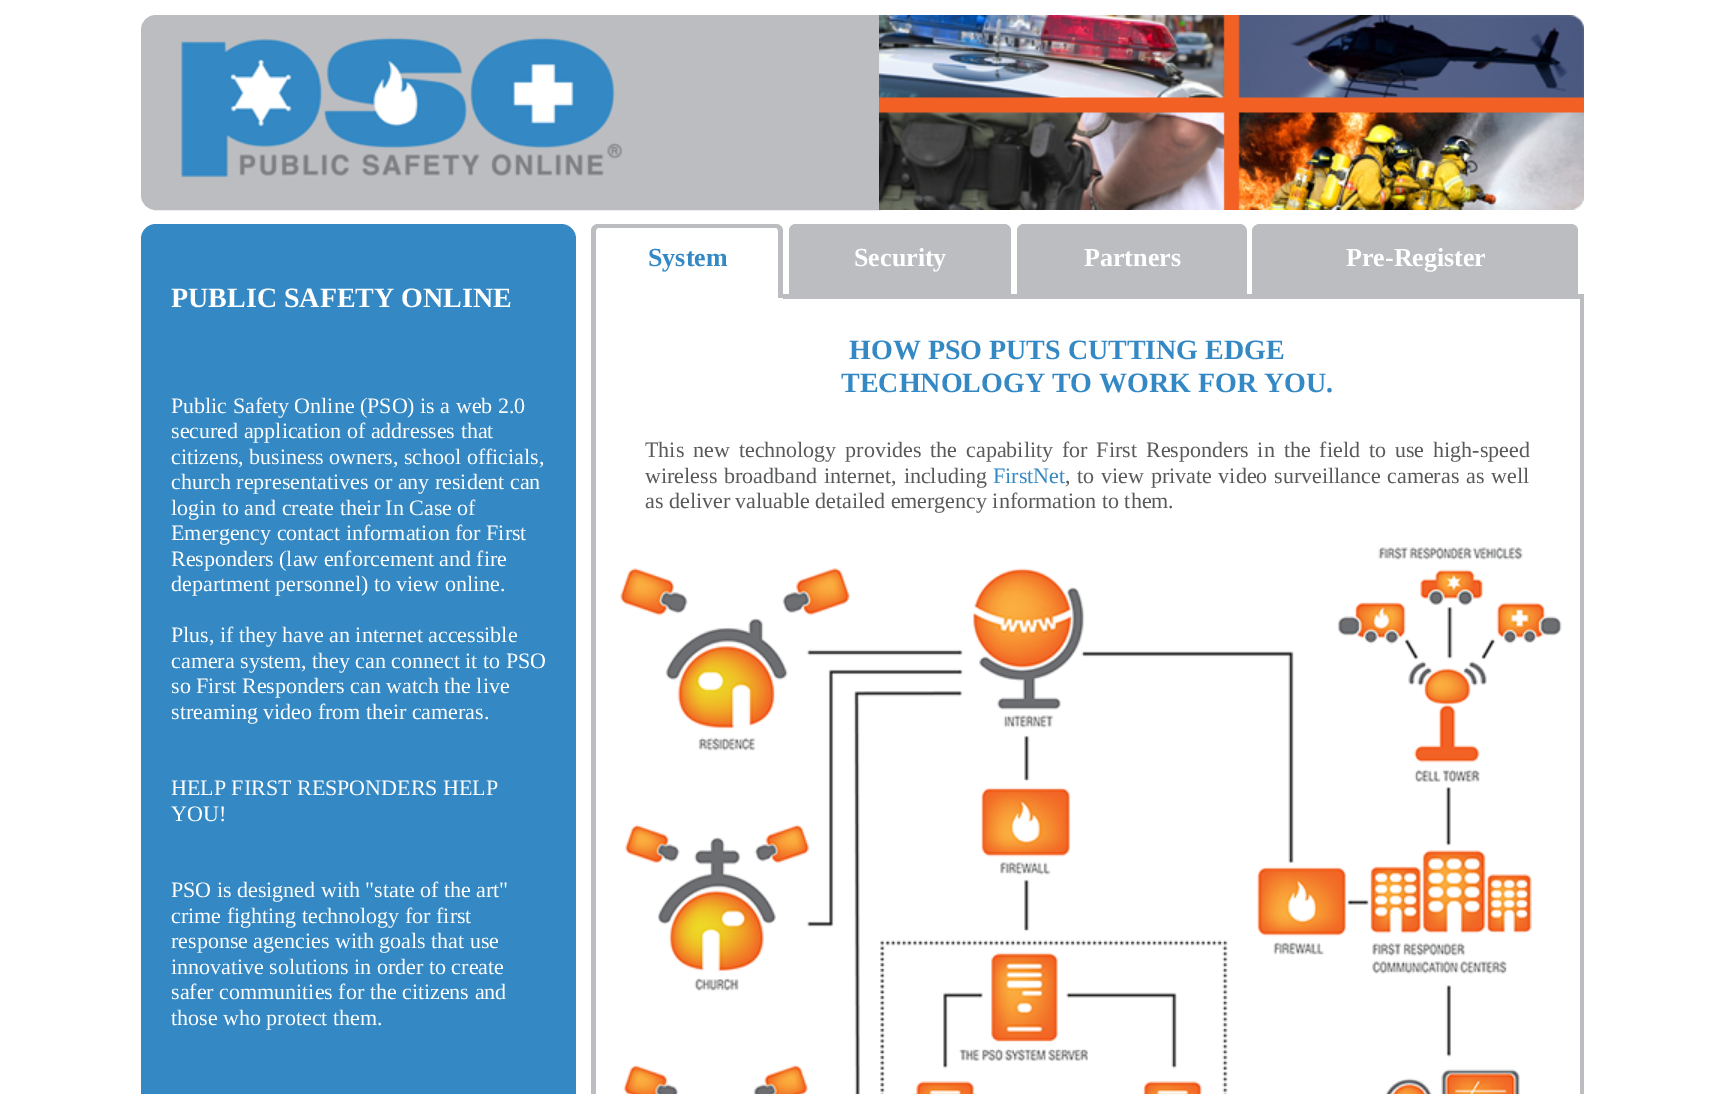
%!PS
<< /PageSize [1721 1094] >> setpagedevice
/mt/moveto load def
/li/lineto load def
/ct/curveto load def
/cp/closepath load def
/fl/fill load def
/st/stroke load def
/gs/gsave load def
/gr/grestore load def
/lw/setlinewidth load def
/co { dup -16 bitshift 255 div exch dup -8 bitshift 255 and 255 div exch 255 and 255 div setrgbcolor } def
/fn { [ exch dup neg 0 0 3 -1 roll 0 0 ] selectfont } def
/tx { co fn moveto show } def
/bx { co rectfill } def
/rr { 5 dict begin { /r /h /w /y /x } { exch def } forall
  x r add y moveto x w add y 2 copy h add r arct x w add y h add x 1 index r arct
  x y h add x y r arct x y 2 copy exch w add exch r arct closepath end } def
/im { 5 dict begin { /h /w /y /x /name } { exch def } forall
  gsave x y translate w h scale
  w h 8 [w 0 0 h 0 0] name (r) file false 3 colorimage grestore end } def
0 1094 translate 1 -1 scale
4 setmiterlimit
0 0 1721 1094 16#FFFFFF bx
16#BBBDC0 co
156 17.5 mt 878.5 17.5 li 878.5 207.5 li 156 207.5 li 149 207.5 143.5 202 143.5 195 ct 143.5 30 li 143.5 23 149 17.5 156 17.5 ct cp gs fl gr
5 lw
st
(media/1.raw) 181 37 442 141 im
(media/2.raw) 879 15 705 195 im
16#3489C4 co
141 224 435 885 15 rr fl
16#BBBDC0 co
598 224 mt 776 224 li 780 224 783 227 783 231 ct 783 298 li 591 298 li 591 231 li 591 227 594 224 598 224 ct cp 598 228 mt 776 228 li 777 228 778 229 778 231 ct 778 298 li 596 298 li 596 231 li 596 229 597 228 598 228 ct cp eofill
797 224 mt 1003 224 li 1007.5 224 1011 227.5 1011 232 ct 1011 299 li 789 299 li 789 232 li 789 227.5 792.5 224 797 224 ct cp fl
796 224 mt 1004 224 li 1008 224 1011 227 1011 231 ct 1011 298 li 789 298 li 789 231 li 789 227 792 224 796 224 ct cp 796 228 mt 1004 228 li 1005 228 1006 229 1006 231 ct 1006 298 li 794 298 li 794 231 li 794 229 795 228 796 228 ct cp eofill
1025 224 mt 1239 224 li 1243.5 224 1247 227.5 1247 232 ct 1247 299 li 1017 299 li 1017 232 li 1017 227.5 1020.5 224 1025 224 ct cp fl
1024 224 mt 1239 224 li 1243 224 1246 227 1246 231 ct 1246 298 li 1017 298 li 1017 231 li 1017 227 1020 224 1024 224 ct cp 1024 228 mt 1239 228 li 1241 228 1242 229 1242 231 ct 1242 298 li 1022 298 li 1022 231 li 1022 229 1023 228 1024 228 ct cp eofill
1261 224 mt 1570 224 li 1574.5 224 1578 227.5 1578 232 ct 1578 299 li 1253 299 li 1253 232 li 1253 227.5 1256.5 224 1261 224 ct cp fl
1247 294 6 5 16#BBBDC0 bx
1260 224 mt 1570 224 li 1575 224 1578 227 1578 231 ct 1578 298 li 1252 298 li 1252 231 li 1252 227 1256 224 1260 224 ct cp 1260 228 mt 1570 228 li 1572 228 1574 229 1574 231 ct 1574 298 li 1257 298 li 1257 231 li 1257 229 1258 228 1260 228 ct cp eofill
783 294 6 5 16#BBBDC0 bx
1011 294 6 5 16#BBBDC0 bx
1578 294 6 5 16#BBBDC0 bx
591 298 mt 1584 298 li 1584 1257 li 1584 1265 1577 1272 1569 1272 ct 606 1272 li 598 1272 591 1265 591 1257 ct cp 596 298 mt 1580 298 li 1580 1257 li 1580 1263 1575 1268 1569 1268 ct 606 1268 li 600 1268 596 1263 596 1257 ct cp eofill
(media/3.raw) 620 547 942 547 im
(PUBLIC SAFETY ONLINE) 171 307 /LiberationSerif-Bold 28 16#FFFFFF tx
(Public Safety Online \(PSO\) is a web 2.0) 171 413 /LiberationSerif-Regular 22 16#FFFFFF tx
(secured application of addresses that) 171 438 /LiberationSerif-Regular 22 16#FFFFFF tx
(citizens, business owners, school officials,) 171 464 /LiberationSerif-Regular 22 16#FFFFFF tx
(church representatives or any resident can) 171 489 /LiberationSerif-Regular 22 16#FFFFFF tx
(login to and create their In Case of) 171 515 /LiberationSerif-Regular 22 16#FFFFFF tx
(Emergency contact information for First) 171 540 /LiberationSerif-Regular 22 16#FFFFFF tx
(Responders \(law enforcement and fire) 171 566 /LiberationSerif-Regular 22 16#FFFFFF tx
(department personnel\) to view online.) 171 591 /LiberationSerif-Regular 22 16#FFFFFF tx
(Plus, if they have an internet accessible) 171 642 /LiberationSerif-Regular 22 16#FFFFFF tx
(camera system, they can connect it to PSO) 171 668 /LiberationSerif-Regular 22 16#FFFFFF tx
(so First Responders can watch the live) 171 693 /LiberationSerif-Regular 22 16#FFFFFF tx
(streaming video from their cameras.) 171 719 /LiberationSerif-Regular 22 16#FFFFFF tx
(HELP FIRST RESPONDERS HELP) 171 795 /LiberationSerif-Regular 22 16#FFFFFF tx
(YOU!) 171 821 /LiberationSerif-Regular 22 16#FFFFFF tx
(PSO is designed with "state of the art") 171 897 /LiberationSerif-Regular 22 16#FFFFFF tx
(crime fighting technology for first) 171 923 /LiberationSerif-Regular 22 16#FFFFFF tx
(response agencies with goals that use) 171 948 /LiberationSerif-Regular 22 16#FFFFFF tx
(innovative solutions in order to create) 171 974 /LiberationSerif-Regular 22 16#FFFFFF tx
(safer communities for the citizens and) 171 999 /LiberationSerif-Regular 22 16#FFFFFF tx
(those who protect them.) 171 1025 /LiberationSerif-Regular 22 16#FFFFFF tx
(System) 648 266 /LiberationSerif-Bold 26 16#3489C4 tx
(Security) 854 266 /LiberationSerif-Bold 26 16#FFFFFF tx
(Partners) 1084 266 /LiberationSerif-Bold 26 16#FFFFFF tx
(Pre-Register) 1346 266 /LiberationSerif-Bold 26 16#FFFFFF tx
(HOW PSO PUTS CUTTING EDGE) 849 359 /LiberationSerif-Bold 28 16#3489C4 tx
(TECHNOLOGY TO WORK FOR YOU.) 841 392 /LiberationSerif-Bold 28 16#3489C4 tx
/LiberationSerif-Regular 22 fn
16#58595B co
645 457 mt 3.5 0 32 (This new technology provides the capability for First Responders in the field to use high-speed) widthshow
645 483 mt 1.5 0 32 (wireless broadband internet, including) widthshow
(FirstNet) 993 483 /LiberationSerif-Regular 22 16#3489C4 tx
16#58595B co
1065 483 mt 1.25 0 32 (, to view private video surveillance cameras as well) widthshow
(as deliver valuable detailed emergency information to them.) 645 508 /LiberationSerif-Regular 22 16#58595B tx
showpage
